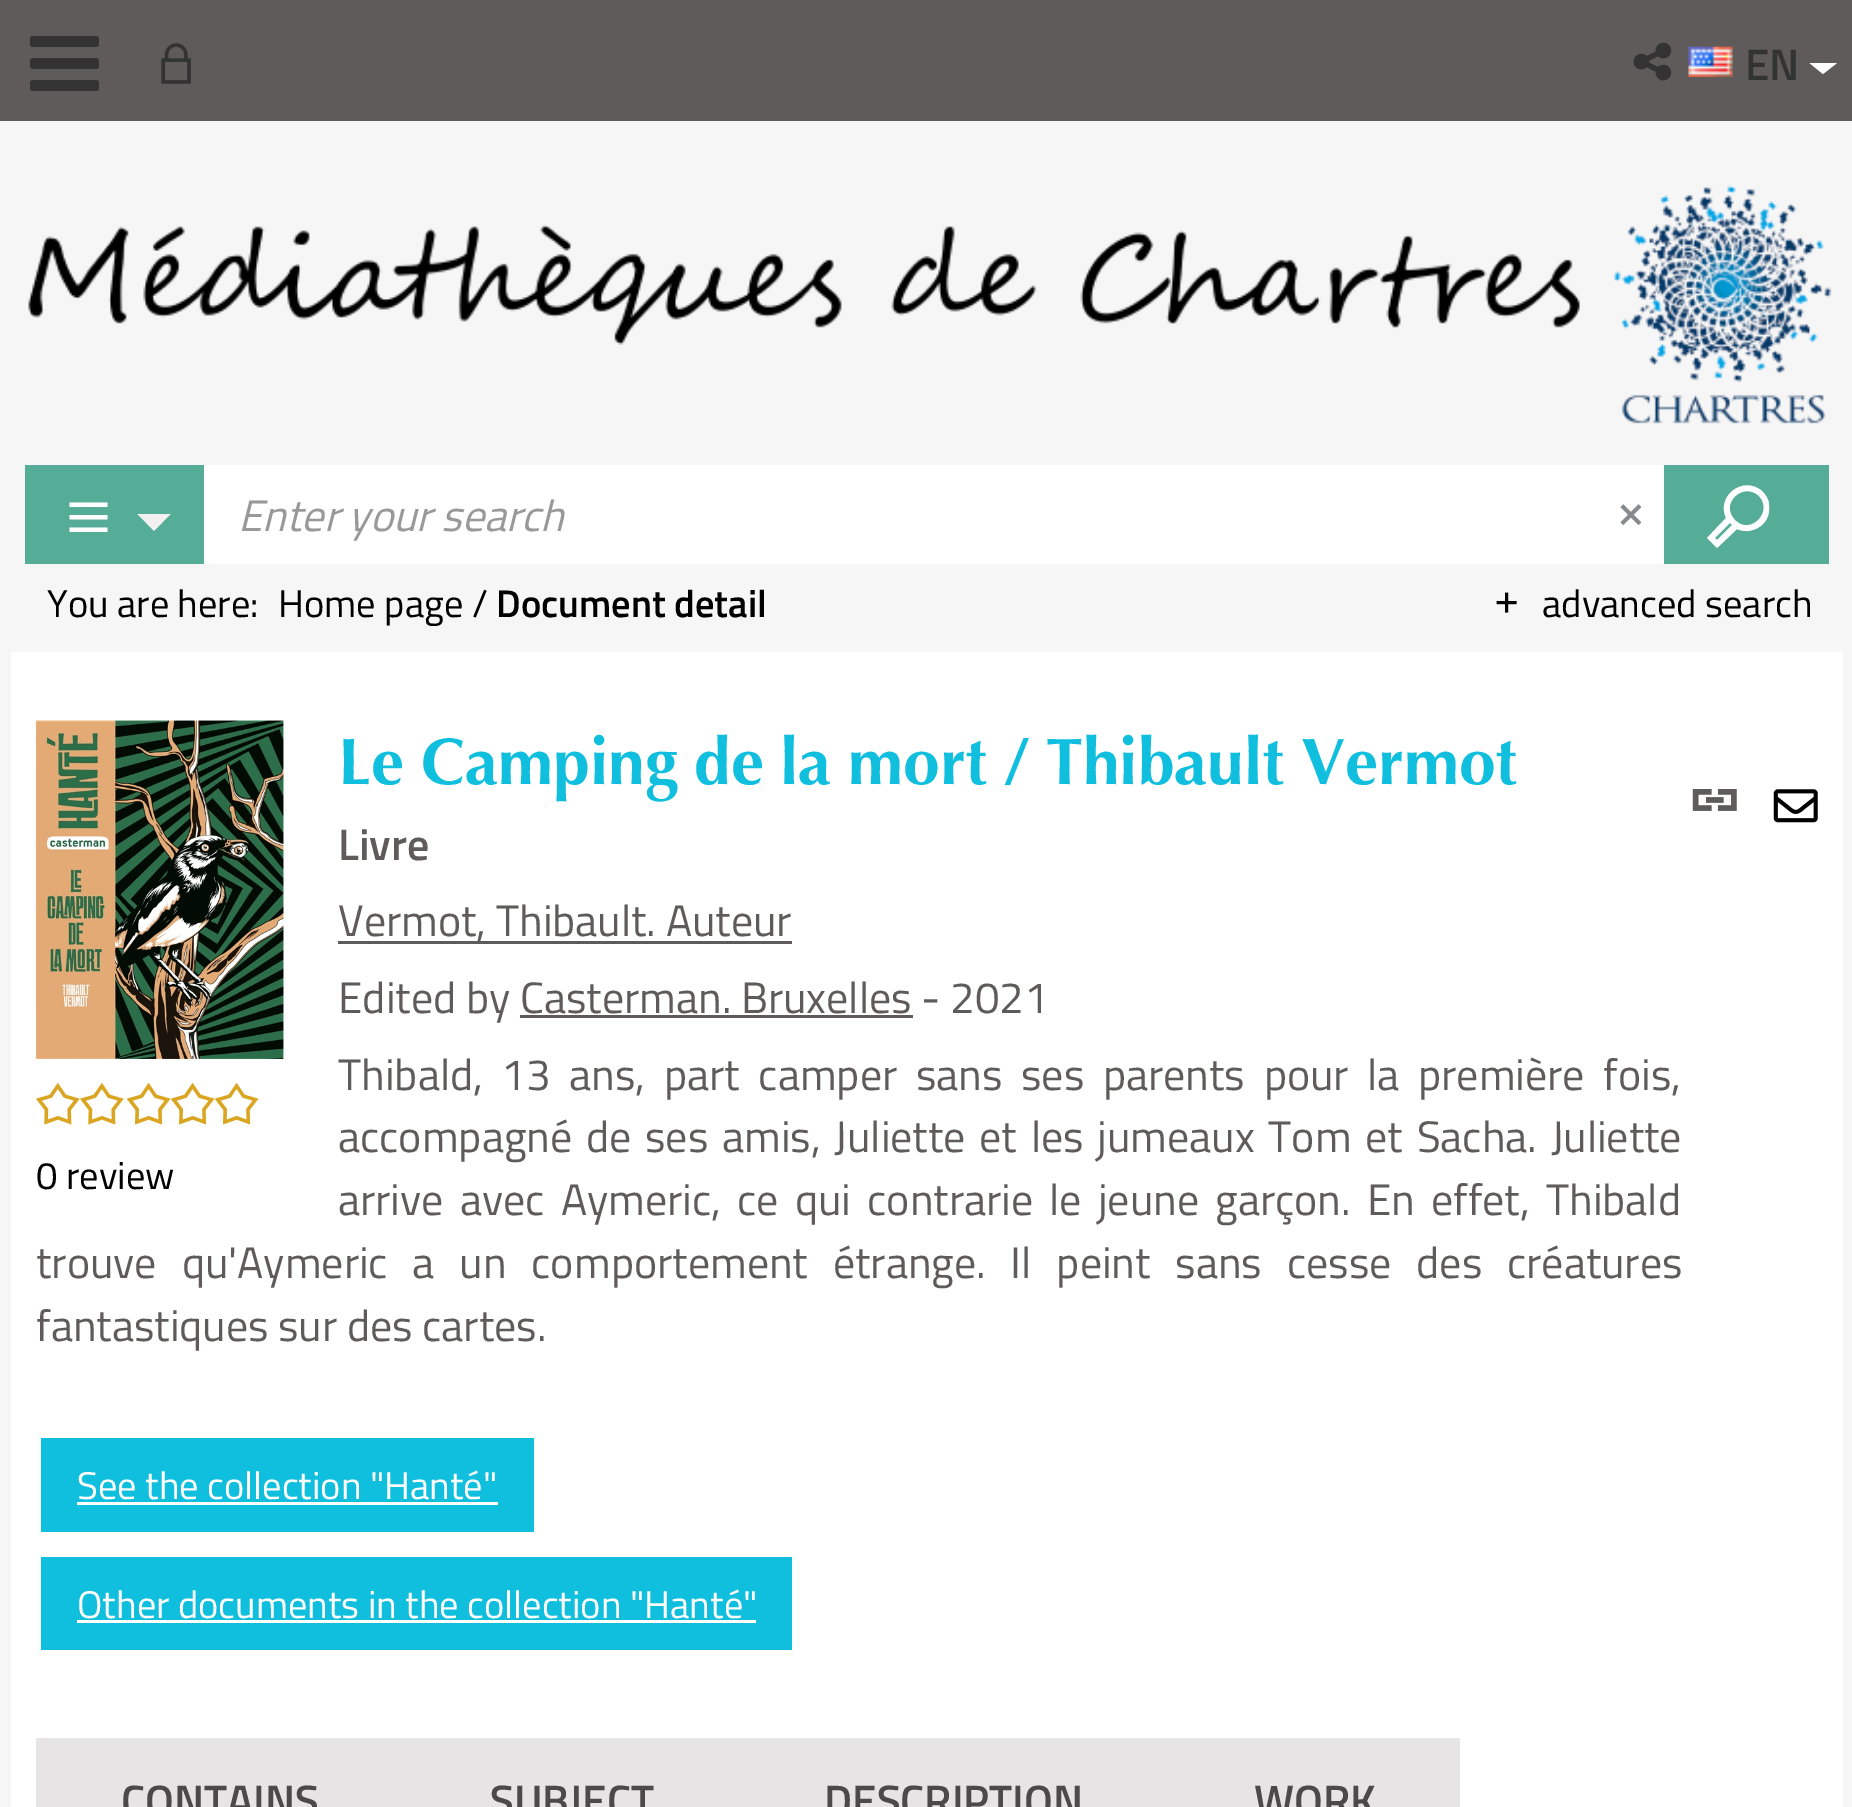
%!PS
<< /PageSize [1852 1807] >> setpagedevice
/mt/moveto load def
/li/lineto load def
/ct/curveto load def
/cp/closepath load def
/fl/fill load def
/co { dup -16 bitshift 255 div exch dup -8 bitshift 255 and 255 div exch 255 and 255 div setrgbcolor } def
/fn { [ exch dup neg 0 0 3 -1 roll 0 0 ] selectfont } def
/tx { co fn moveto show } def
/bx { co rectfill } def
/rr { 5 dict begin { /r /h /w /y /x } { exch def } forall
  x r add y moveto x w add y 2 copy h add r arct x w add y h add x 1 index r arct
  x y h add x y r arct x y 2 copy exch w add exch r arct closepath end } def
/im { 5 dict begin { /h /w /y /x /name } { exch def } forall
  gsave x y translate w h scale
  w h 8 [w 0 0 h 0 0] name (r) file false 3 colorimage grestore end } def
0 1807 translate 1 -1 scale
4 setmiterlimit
0 0 1852 1807 16#F6F6F6 bx
0 0 1852 121 16#5F5B5B bx
16#333333 co
30 36 69 11 3 rr fl
30 58 69 11 3 rr fl
30 80 69 11 3 rr fl
(media/1.raw) 161 43 30 41 im
(media/2.raw) 1633 42 39 39 im
(media/3.raw) 1688 46 45 31 im
16#FFFFFF co
1809.5 63 mt 1837 63 li 1823 74 li cp fl
(media/4.raw) 28 185 1804 239 im
25 465 179 99 16#56AD97 bx
16#FFFFFF co
69.5 502.5 mt 107.5 502.5 li 107.5 507 li 69.5 507 li cp 69.5 519.5 mt 107.5 519.5 li 107.5 515 li 69.5 515 li cp 69.5 532 mt 107.5 532 li 107.5 527.5 li 69.5 527.5 li cp fl
16#F2F0F1 co
137.5 514 mt 170.5 514 li 154 531 li cp fl
204 465 1460 99 16#FFFFFF bx
(media/5.raw) 1620 504 22 22 im
1664 465 165 99 16#56AD97 bx
16#FFFFFF co
1763 524 mt 1768 519 1770 512 1769 505 ct 1769 500 1766 495 1762 491 ct 1743 475 1716 496 1726 518 ct 1707 538 li 1717 548 li 1737 529 li 1745 533 1756 531 1763 524 ct cp 1717 540 mt 1715 538 li 1730 523 li 1732 525 li cp 1735 520 mt 1719 504 1743 481 1759 496 ct 1774 512 1750 536 1735 520 ct cp fl
(media/6.raw) 1496 592 21 21 im
11 652 1832 1155 16#FFFFFF bx
338 941 454 3 16#5F5B5B bx
520 1015 393 3 16#5F5B5B bx
41 1438 493 94 16#10BFDE bx
77 1502 421 3 16#FFFFFF bx
41 1557 751 93 16#10BFDE bx
77 1620 679 3 16#FFFFFF bx
36 1738 1424 69 16#E6E4E5 bx
(media/7.raw) 35 720 249 339 im
(media/8.raw) 35 720 249 339 im
(media/9.raw) 36 1082 44 43 im
(media/9.raw) 80 1082 44 43 im
(media/10.raw) 126 1082 45 43 im
(media/11.raw) 170 1082 45 43 im
(media/11.raw) 214 1082 45 43 im
(media/12.raw) 1692 789 45 22 im
(media/13.raw) 1773 789 45 34 im
(EN) 1745 80 /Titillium-SemiBold 44 16#333333 tx
(Enter your search) 238 531 /Titillium-Italic 44 16#999999 tx
(advanced search) 1542 617 /Titillium-Regular 38.5 16#000000 tx
(You are here:) 47 617 /Titillium-Regular 38.5 16#000000 tx
(Home page /) 278 617 /Titillium-Regular 38.5 16#000000 tx
(Document detail) 496 617 /Titillium-SemiBold 38.5 16#000000 tx
(Le) 338 784 /Optima-Bold 66 16#10BFDE tx
(Camping) 421 784 /Optima-Bold 66 16#10BFDE tx
(de) 694 784 /Optima-Bold 66 16#10BFDE tx
(la) 780 784 /Optima-Bold 66 16#10BFDE tx
(mort) 848 784 /Optima-Bold 66 16#10BFDE tx
(/) 1004 784 /Optima-Bold 66 16#10BFDE tx
(Thibault) 1046 784 /Optima-Bold 66 16#10BFDE tx
(Vermot) 1301 784 /Optima-Bold 66 16#10BFDE tx
(Livre) 338 860 /Titillium-SemiBold 44 16#5F5B5B tx
(Vermot, Thibault. Auteur) 338 936 /Titillium-Regular 44 16#5F5B5B tx
(Edited by Casterman. Bruxelles - 2021) 338 1013 /Titillium-Regular 44 16#5F5B5B tx
338 1090 mt 9 0 32 (Thibald, 13 ans, part camper sans ses parents pour la première fois,) widthshow
338 1152 mt 4.1 0 32 (accompagné de ses amis, Juliette et les jumeaux Tom et Sacha. Juliette) widthshow
338 1215 mt 6.6 0 32 (arrive avec Aymeric, ce qui contrarie le jeune garçon. En effet, Thibald) widthshow
36 1278 mt 15.25 0 32 (trouve qu'Aymeric a un comportement étrange. Il peint sans cesse des créatures) widthshow
(fantastiques sur des cartes.) 36 1341 /Titillium-Regular 44 16#5F5B5B tx
(See the collection "Hanté") 77 1499 /Titillium-Regular 38.5 16#FFFFFF tx
(Other documents in the collection "Hanté") 77 1618 /Titillium-Regular 38.5 16#FFFFFF tx
(CONTAINS) 121 1816 /Titillium-SemiBold 44 16#4B494A tx
(SUBJECT) 490 1816 /Titillium-SemiBold 44 16#4B494A tx
(DESCRIPTION) 824 1816 /Titillium-SemiBold 44 16#4B494A tx
(WORK) 1254 1816 /Titillium-SemiBold 44 16#4B494A tx
(0 review) 36 1189 /Titillium-Regular 38.5 16#000000 tx
showpage
